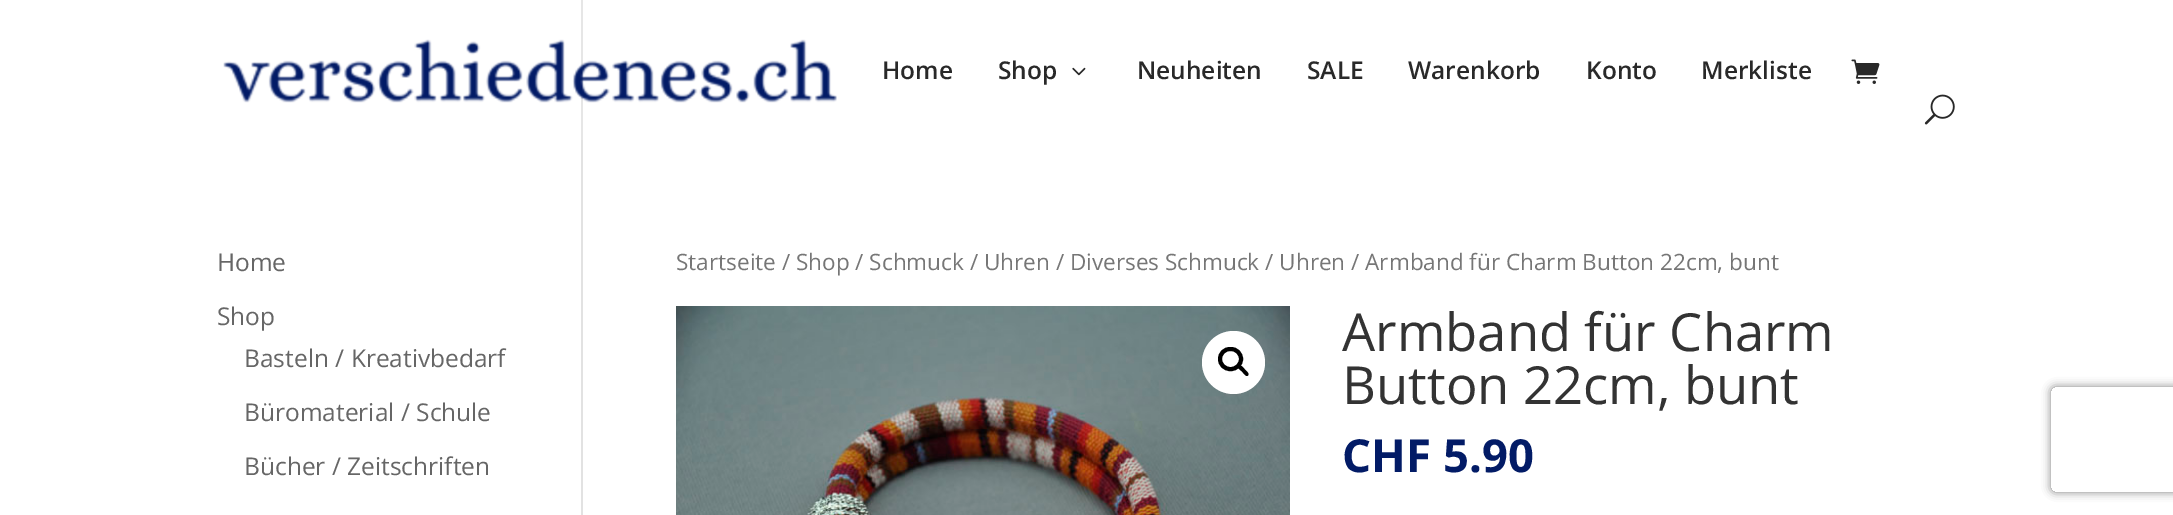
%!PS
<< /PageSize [2173 515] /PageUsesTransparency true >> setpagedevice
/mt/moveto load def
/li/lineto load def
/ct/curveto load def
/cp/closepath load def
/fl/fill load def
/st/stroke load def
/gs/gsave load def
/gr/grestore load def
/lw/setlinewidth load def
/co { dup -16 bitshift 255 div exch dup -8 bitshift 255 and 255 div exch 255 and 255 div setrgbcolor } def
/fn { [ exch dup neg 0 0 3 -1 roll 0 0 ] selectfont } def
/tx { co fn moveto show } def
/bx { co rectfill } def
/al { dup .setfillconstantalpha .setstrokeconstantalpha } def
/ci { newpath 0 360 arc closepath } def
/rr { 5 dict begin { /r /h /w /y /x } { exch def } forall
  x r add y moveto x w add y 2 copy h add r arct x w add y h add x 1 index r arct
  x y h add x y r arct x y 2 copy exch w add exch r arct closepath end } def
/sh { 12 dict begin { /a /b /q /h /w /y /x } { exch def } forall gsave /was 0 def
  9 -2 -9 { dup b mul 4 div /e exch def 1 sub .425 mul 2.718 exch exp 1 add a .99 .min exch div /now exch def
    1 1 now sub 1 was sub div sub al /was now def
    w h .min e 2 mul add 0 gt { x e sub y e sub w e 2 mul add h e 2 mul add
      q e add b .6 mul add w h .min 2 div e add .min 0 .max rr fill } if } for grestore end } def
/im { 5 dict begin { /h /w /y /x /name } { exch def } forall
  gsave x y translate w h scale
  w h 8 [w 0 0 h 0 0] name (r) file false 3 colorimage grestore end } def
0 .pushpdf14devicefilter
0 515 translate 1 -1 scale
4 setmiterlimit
0 0 2173 515 16#FFFFFF bx
581 0 2 140 16#E6E6E6 bx
(media/1.raw) 223 39 614 64 im
(media/2.raw) 1072 67 14 9 im
(media/3.raw) 1851 59 29 25 im
(media/4.raw) 1924 94 31 31 im
581 140 2 375 16#E2E2E2 bx
(media/5.raw) 676 306 614 209 im
16#FFFFFF co
1233.5 362.5 31.5 ci fl
16#000000 co
4 lw
1220 349 21 20 10 rr st
1238 365.5 mt 1240 363.5 1243.5 368 1244.5 369 ct 1245.5 370.5 1250 373.5 1248 375.5 ct 1246 377.5 1243 372.5 1242 371.5 ct 1241 370.5 1236 367.5 1238 365.5 ct cp fl
gs
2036 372 mt 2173 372 li 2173 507 li 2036 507 li cp 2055 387 mt 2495 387 li 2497 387 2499 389 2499 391 ct 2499 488 li 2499 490 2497 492 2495 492 ct 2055 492 li 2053 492 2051 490 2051 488 ct 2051 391 li 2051 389 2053 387 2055 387 ct cp eoclip newpath
16#808080 co
2051 387 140 105 4 4.5 1 sh
gr
(Home) 882 79 /OpenSans-SemiBold 24.5 16#292929 tx
(Shop) 998 79 /OpenSans-SemiBold 24.5 16#292929 tx
(Neuheiten) 1137 79 /OpenSans-SemiBold 24.5 16#292929 tx
(SALE) 1307 79 /OpenSans-SemiBold 24.5 16#292929 tx
(Warenkorb) 1408 79 /OpenSans-SemiBold 24.5 16#292929 tx
(Konto) 1586 79 /OpenSans-SemiBold 24.5 16#292929 tx
(Merkliste) 1701 79 /OpenSans-SemiBold 24.5 16#292929 tx
(Home) 217 271 /OpenSans-Regular 24.5 16#666666 tx
(Shop) 217 325 /OpenSans-Regular 24.5 16#666666 tx
(Basteln / Kreativbedarf) 244 367 /OpenSans-Regular 24.5 16#666666 tx
(Büromaterial / Schule) 244 421 /OpenSans-Regular 24.5 16#666666 tx
(Bücher / Zeitschriften) 244 475 /OpenSans-Regular 24.5 16#666666 tx
(Startseite / Shop / Schmuck / Uhren / Diverses Schmuck / Uhren / Armband für Charm Button 22cm, bunt) 676 270 /OpenSans-Regular 22.55 16#767676 tx
(Armband für Charm) 1342 351 /OpenSans-Regular 52.5 16#333333 tx
(Button 22cm, bunt) 1342 404 /OpenSans-Regular 52.5 16#333333 tx
(CHF 5.90) 1342 472 /OpenSans-Bold 45.5 16#021B66 tx
.poppdf14devicefilter showpage
